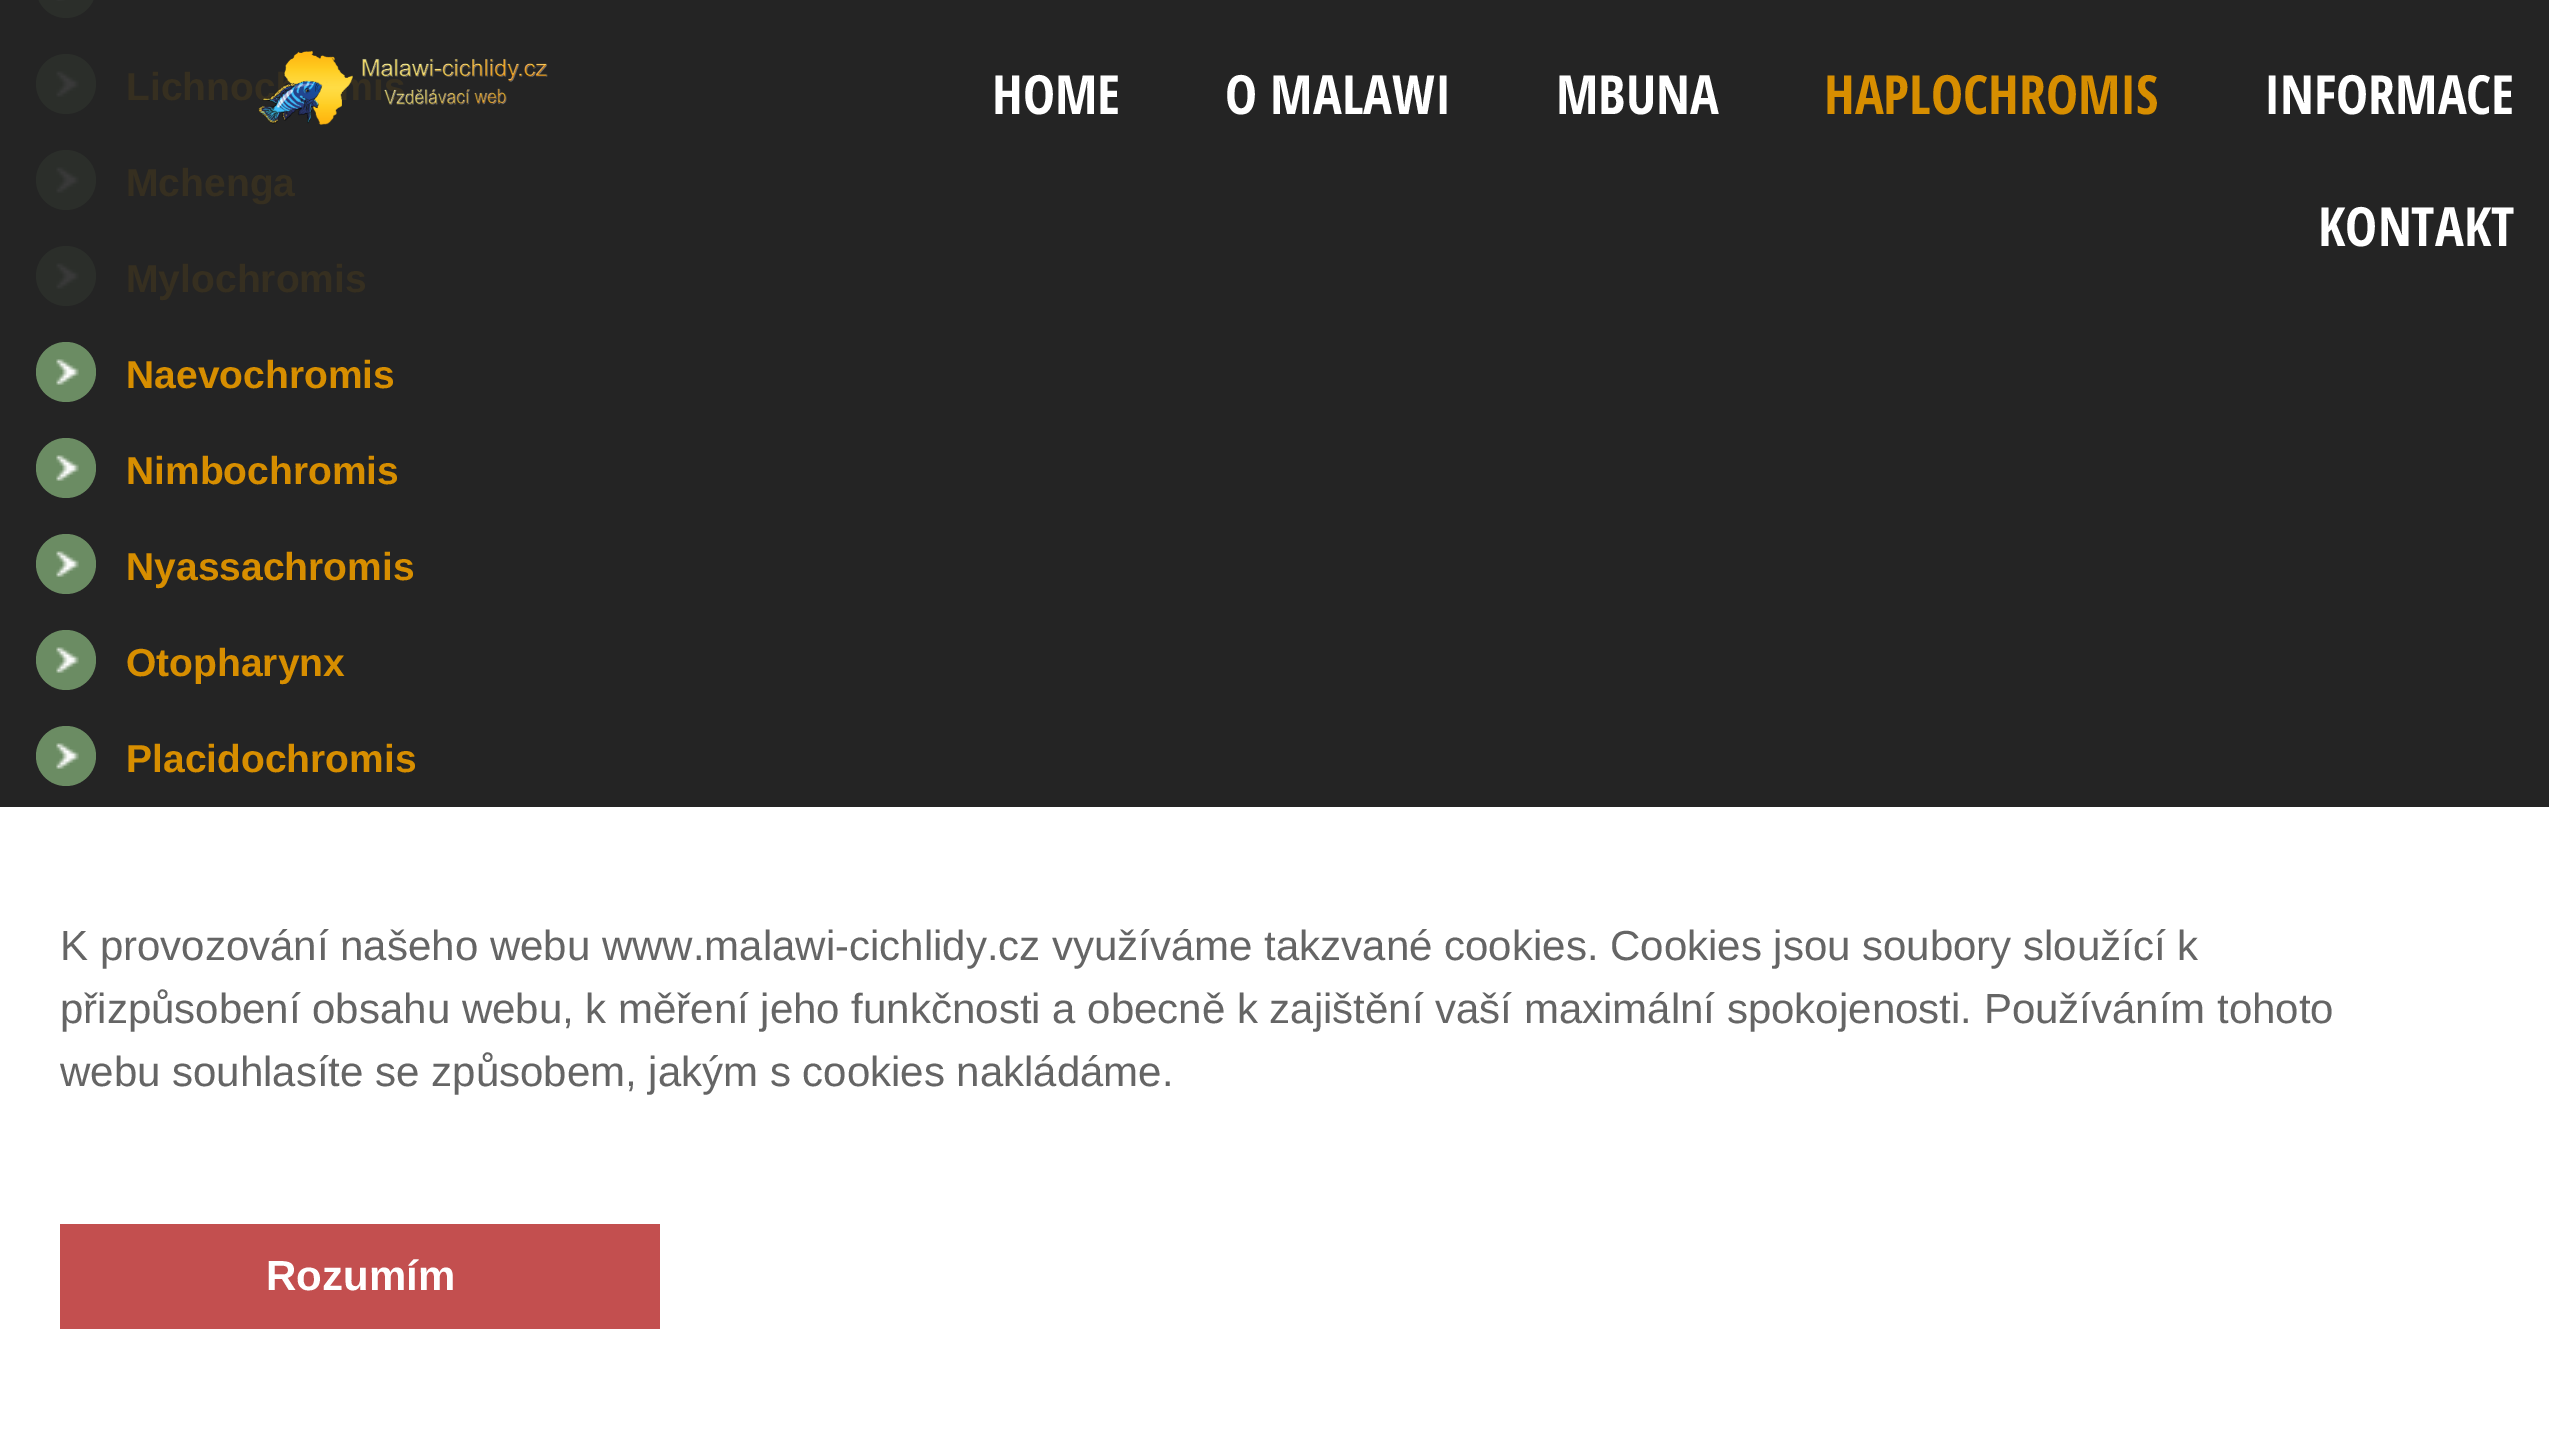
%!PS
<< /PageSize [2549 1447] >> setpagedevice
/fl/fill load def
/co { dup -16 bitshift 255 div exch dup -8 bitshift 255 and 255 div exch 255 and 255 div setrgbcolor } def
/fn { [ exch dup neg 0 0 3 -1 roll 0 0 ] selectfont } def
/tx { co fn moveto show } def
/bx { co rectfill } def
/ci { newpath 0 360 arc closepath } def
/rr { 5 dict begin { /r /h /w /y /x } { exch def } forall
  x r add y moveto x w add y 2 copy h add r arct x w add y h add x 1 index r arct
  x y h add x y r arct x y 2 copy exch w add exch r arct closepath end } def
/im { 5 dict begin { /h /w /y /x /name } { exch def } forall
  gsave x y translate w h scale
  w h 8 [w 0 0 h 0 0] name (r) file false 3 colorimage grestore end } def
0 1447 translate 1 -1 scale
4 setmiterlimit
0 0 2549 1447 16#242424 bx
16#2B2E2A co
36 -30 60 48 30 rr fl
(media/1.raw) 56 0 9 1 im
66 84 30 ci fl
(media/2.raw) 56 71 23 26 im
66 180 30 ci fl
(media/2.raw) 56 167 23 26 im
66 276 30 ci fl
(media/2.raw) 56 263 23 26 im
16#6B8C63 co
66 372 30 ci fl
(media/3.raw) 56 359 23 26 im
66 468 30 ci fl
(media/3.raw) 56 455 23 26 im
66 564 30 ci fl
(media/3.raw) 56 551 23 26 im
66 660 30 ci fl
(media/3.raw) 56 647 23 26 im
66 756 30 ci fl
(media/3.raw) 56 743 23 26 im
0 807 2549 640 16#FFFFFF bx
60 1224 600 105 16#C34F4F bx
(Lichnoc) 126 100 /LiberationSans-Bold 39 16#362F20 tx
(mis) 338 100 /LiberationSans-Bold 39 16#362F20 tx
(Mchenga) 126 196 /LiberationSans-Bold 39 16#362F20 tx
(Mylochromis) 126 292 /LiberationSans-Bold 39 16#362F20 tx
(Naevochromis) 126 388 /LiberationSans-Bold 39 16#D78E00 tx
(Nimbochromis) 126 484 /LiberationSans-Bold 39 16#D78E00 tx
(Nyassachromis) 126 580 /LiberationSans-Bold 39 16#D78E00 tx
(Otopharynx) 126 676 /LiberationSans-Bold 39 16#D78E00 tx
(Placidochromis) 126 772 /LiberationSans-Bold 39 16#D78E00 tx
(media/4.raw) 258 50 290 75 im
(HOME) 992 114 /OpenSansCondensed-Bold 54 16#FFFFFF tx
(O MALAWI) 1225 114 /OpenSansCondensed-Bold 54 16#FFFFFF tx
(MBUNA) 1556 114 /OpenSansCondensed-Bold 54 16#FFFFFF tx
(HAPLOCHROMIS) 1824 114 /OpenSansCondensed-Bold 54 16#D78E00 tx
(INFORMACE) 2264 114 /OpenSansCondensed-Bold 54 16#FFFFFF tx
(KONTAKT) 2318 246 /OpenSansCondensed-Bold 54 16#FFFFFF tx
(K provozování našeho webu www.malawi-cichlidy.cz využíváme takzvané cookies. Cookies jsou soubory sloužící k) 60 960 /LiberationSans-Regular 42 16#656565 tx
(přizpůsobení obsahu webu, k měření jeho funkčnosti a obecně k zajištění vaší maximální spokojenosti. Používáním tohoto) 60 1023 /LiberationSans-Regular 42 16#656565 tx
(webu souhlasíte se způsobem, jakým s cookies nakládáme.) 60 1086 /LiberationSans-Regular 42 16#656565 tx
(Rozumím) 266 1290 /LiberationSans-Bold 42 16#FFFFFF tx
showpage
